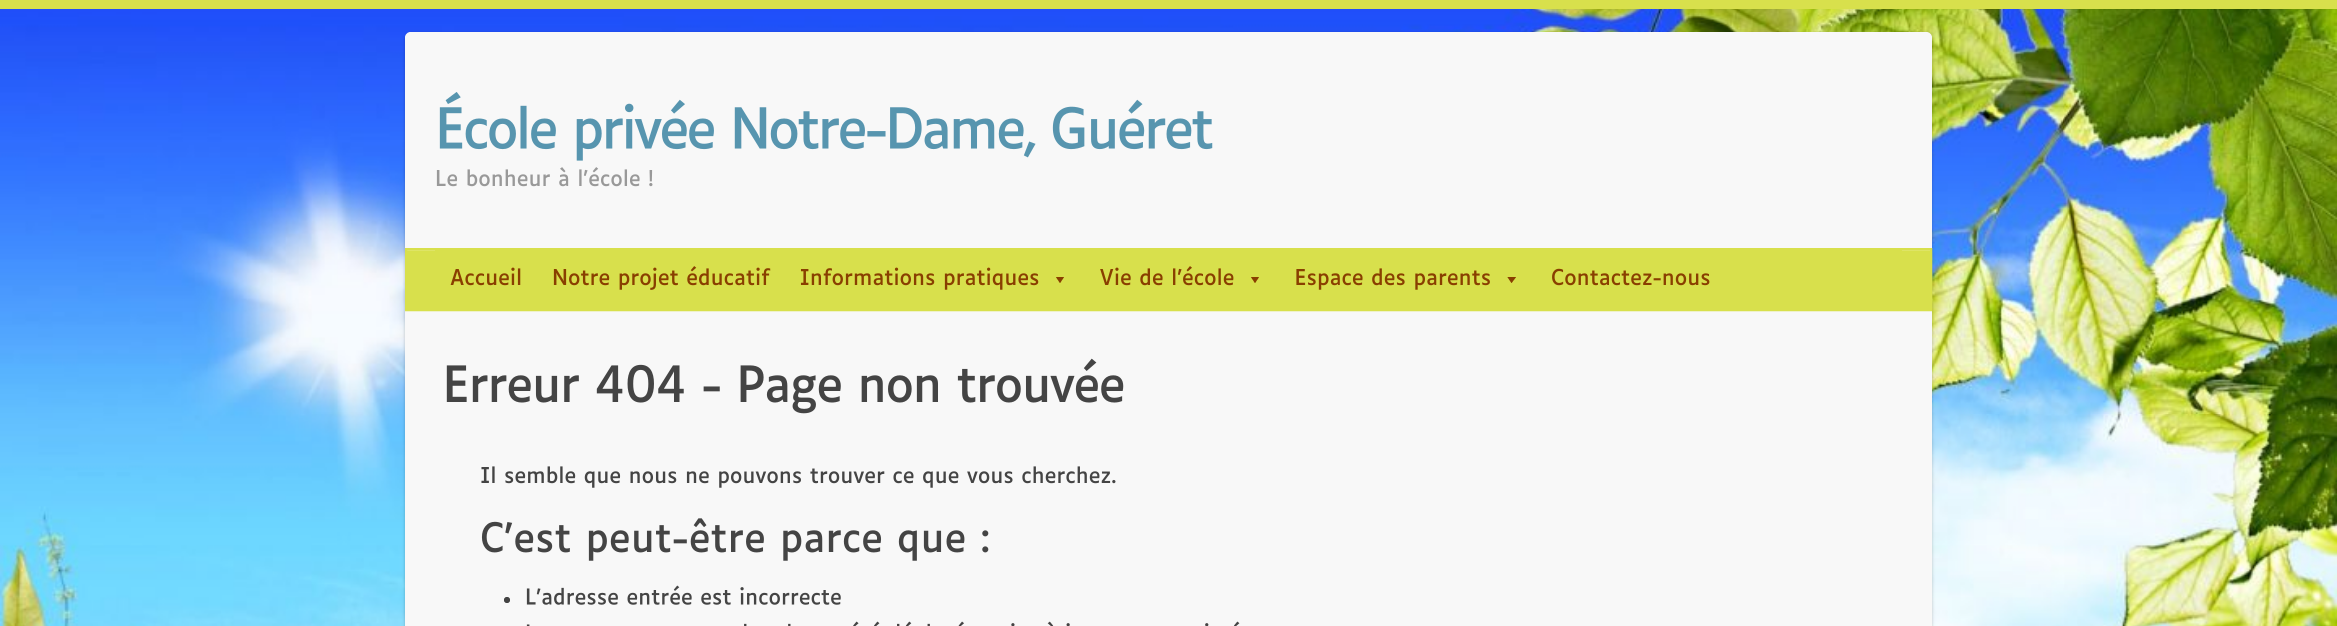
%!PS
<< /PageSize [2337 626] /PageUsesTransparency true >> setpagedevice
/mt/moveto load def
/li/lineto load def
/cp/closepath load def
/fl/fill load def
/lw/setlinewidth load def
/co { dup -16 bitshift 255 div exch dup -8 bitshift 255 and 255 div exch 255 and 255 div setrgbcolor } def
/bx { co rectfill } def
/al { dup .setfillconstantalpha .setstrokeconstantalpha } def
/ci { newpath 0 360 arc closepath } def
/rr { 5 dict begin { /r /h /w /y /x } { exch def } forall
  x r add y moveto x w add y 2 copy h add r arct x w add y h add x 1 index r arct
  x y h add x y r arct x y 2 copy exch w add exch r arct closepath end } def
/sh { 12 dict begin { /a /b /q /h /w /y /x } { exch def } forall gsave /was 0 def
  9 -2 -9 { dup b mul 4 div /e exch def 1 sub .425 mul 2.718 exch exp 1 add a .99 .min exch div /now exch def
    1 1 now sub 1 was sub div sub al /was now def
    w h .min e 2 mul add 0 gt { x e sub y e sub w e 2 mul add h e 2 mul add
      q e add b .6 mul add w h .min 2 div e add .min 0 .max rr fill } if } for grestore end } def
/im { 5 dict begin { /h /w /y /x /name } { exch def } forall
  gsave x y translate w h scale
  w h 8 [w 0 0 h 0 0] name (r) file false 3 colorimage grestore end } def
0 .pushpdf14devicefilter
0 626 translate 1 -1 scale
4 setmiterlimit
0 0 2337 626 16#FFFFFF bx
0 0 2337 9 16#D8E04C bx
(media/1.raw) 0 9 2337 617 im
16#000000 co
405 33 1527 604 6 1.5 .2 sh
16#F8F8F8 co
405 32 1527 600 6 rr fl
(media/2.raw) 439 92 774 69 im
(media/3.raw) 436 167 217 20 im
407 251 1523 58 16#D8E04C bx
407 250 1524 1 16#E0E670 bx
16#D8E04C co
2 lw
406 249 1525 61 rectstroke
435 250 1467 1 16#D8E04C bx
(media/4.raw) 450 267 71 19 im
(media/5.raw) 553 266 218 24 im
(media/6.raw) 800 267 239 23 im
16#893F00 co
1064 277 mt 1060 283 li 1056 277 li cp fl
(media/7.raw) 1100 266 134 20 im
1259 277 mt 1255 283 li 1251 277 li cp fl
(media/8.raw) 1296 268 194 22 im
1516 277 mt 1511.5 283 li 1507.5 277 li cp fl
(media/9.raw) 1552 268 158 18 im
(media/10.raw) 446 358 678 56 im
(media/11.raw) 481 466 635 22 im
(media/12.raw) 481 518 508 43 im
16#444444 co
507 600 3 ci fl
(media/13.raw) 526 585 315 20 im
(media/14.raw) 526 621 714 5 im
.poppdf14devicefilter showpage
